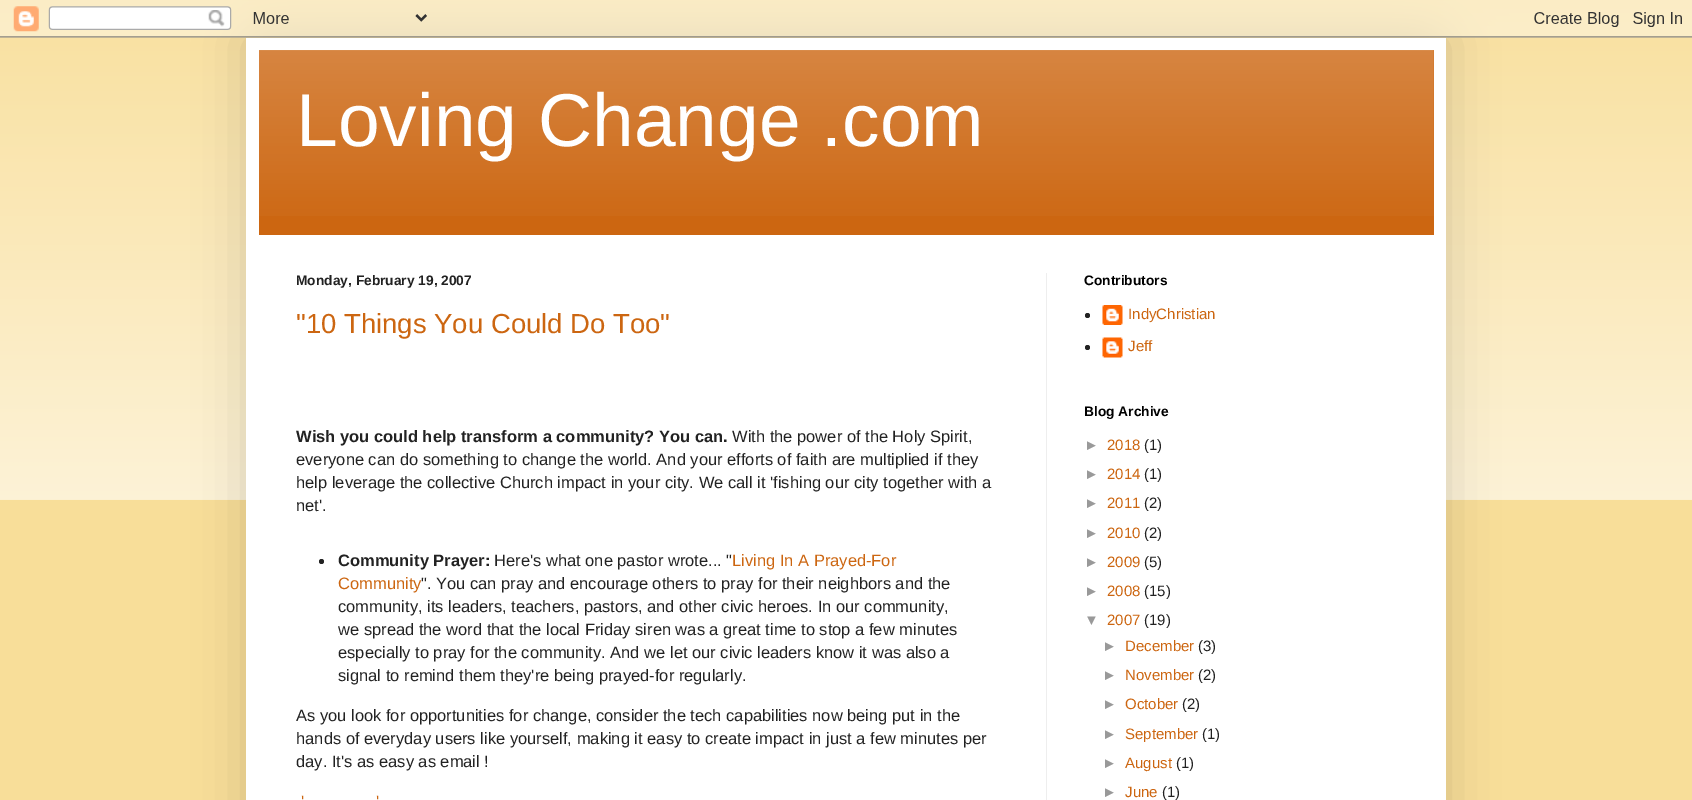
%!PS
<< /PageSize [1692 800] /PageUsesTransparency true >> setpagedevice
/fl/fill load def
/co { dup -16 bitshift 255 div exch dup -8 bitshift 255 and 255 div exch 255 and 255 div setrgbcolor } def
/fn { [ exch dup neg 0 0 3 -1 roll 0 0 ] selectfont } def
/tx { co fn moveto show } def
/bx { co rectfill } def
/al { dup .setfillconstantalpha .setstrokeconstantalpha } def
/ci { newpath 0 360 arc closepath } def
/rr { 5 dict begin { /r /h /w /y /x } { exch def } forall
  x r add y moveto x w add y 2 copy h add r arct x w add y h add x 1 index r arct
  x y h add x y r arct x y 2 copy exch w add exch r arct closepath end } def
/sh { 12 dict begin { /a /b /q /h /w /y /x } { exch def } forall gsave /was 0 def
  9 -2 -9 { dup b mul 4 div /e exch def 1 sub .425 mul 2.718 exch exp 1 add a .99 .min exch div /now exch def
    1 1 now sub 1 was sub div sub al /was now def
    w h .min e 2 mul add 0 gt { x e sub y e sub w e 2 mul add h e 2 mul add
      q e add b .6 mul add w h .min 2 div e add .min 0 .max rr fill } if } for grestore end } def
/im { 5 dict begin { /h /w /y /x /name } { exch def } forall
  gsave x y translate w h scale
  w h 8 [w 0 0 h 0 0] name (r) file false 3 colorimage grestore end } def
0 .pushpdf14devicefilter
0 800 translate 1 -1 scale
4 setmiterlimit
0 0 1692 800 16#F8DE99 bx
(media/1.raw) 0 0 1692 500 im
16#000000 co
246 38 1200 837 0 25 .15 sh
(media/2.raw) 0 0 1692 38 im
246 38 1200 762 16#FFFFFF bx
259 50 1175 185 16#CC6611 bx
(media/3.raw) 259 50 1175 166 im
1046 273 1 527 16#EEEEEE bx
16#222222 co
321.5 561.5 2.5 ci fl
1087.5 315.5 2.5 ci fl
(media/4.raw) 1102 305 21 20 im
1087.5 347.5 2.5 ci fl
(media/5.raw) 1102 337 21 21 im
(Loving Change .com) 296 146 /LiberationSans-Regular 75 16#FFFFFF tx
(Monday, February 19, 2007) 296 285 /LiberationSans-Bold 13.75 16#222222 tx
("10 Things You Could Do Too") 296 333 /LiberationSans-Regular 27.5 16#CC6611 tx
(Wish you could help transform a community? You can.) 296 442 /LiberationSans-Bold 16.5 16#222222 tx
(With the power of the Holy Spirit,) 732 442 /LiberationSans-Regular 16.5 16#222222 tx
(everyone can do something to change the world. And your efforts of faith are multiplied if they) 296 465 /LiberationSans-Regular 16.5 16#222222 tx
(help leverage the collective Church impact in your city. We call it 'fishing our city together with a) 296 488 /LiberationSans-Regular 16.5 16#222222 tx
(net'.) 296 511 /LiberationSans-Regular 16.5 16#222222 tx
(Community Prayer:) 338 566 /LiberationSans-Bold 16.5 16#222222 tx
(Here's what one pastor wrote... ") 494 566 /LiberationSans-Regular 16.5 16#222222 tx
(Living In A Prayed-For) 732 566 /LiberationSans-Regular 16.5 16#CC6611 tx
(Community) 338 589 /LiberationSans-Regular 16.5 16#CC6611 tx
(". You can pray and encourage others to pray for their neighbors and the) 421 589 /LiberationSans-Regular 16.5 16#222222 tx
(community, its leaders, teachers, pastors, and other civic heroes. In our community,) 338 612 /LiberationSans-Regular 16.5 16#222222 tx
(we spread the word that the local Friday siren was a great time to stop a few minutes) 338 635 /LiberationSans-Regular 16.5 16#222222 tx
(especially to pray for the community. And we let our civic leaders know it was also a) 338 658 /LiberationSans-Regular 16.5 16#222222 tx
(signal to remind them they're being prayed-for regularly.) 338 681 /LiberationSans-Regular 16.5 16#222222 tx
(As you look for opportunities for change, consider the tech capabilities now being put in the) 296 721 /LiberationSans-Regular 16.5 16#222222 tx
(hands of everyday users like yourself, making it easy to create impact in just a few minutes per) 296 744 /LiberationSans-Regular 16.5 16#222222 tx
(day. It's as easy as email !) 296 767 /LiberationSans-Regular 16.5 16#222222 tx
(') 301 807 /LiberationSans-Regular 16.5 16#CC6611 tx
(') 376 807 /LiberationSans-Regular 16.5 16#CC6611 tx
(Contributors) 1084 285 /LiberationSans-Bold 13.75 16#000000 tx
(IndyChristian) 1128 319 /LiberationSans-Regular 15 16#CC6611 tx
(Jeff) 1128 351 /LiberationSans-Regular 15 16#CC6611 tx
(Blog Archive) 1084 416 /LiberationSans-Bold 13.75 16#000000 tx
(►) 1084 450 /LiberationSans-Regular 15 16#999999 tx
(2018) 1107 450 /LiberationSans-Regular 15 16#CC6611 tx
(\(1\)) 1144 450 /LiberationSans-Regular 15 16#222222 tx
(►) 1084 479 /LiberationSans-Regular 15 16#999999 tx
(2014) 1107 479 /LiberationSans-Regular 15 16#CC6611 tx
(\(1\)) 1144 479 /LiberationSans-Regular 15 16#222222 tx
(►) 1084 508 /LiberationSans-Regular 15 16#999999 tx
(2011) 1107 508 /LiberationSans-Regular 15 16#CC6611 tx
(\(2\)) 1144 508 /LiberationSans-Regular 15 16#222222 tx
(►) 1084 538 /LiberationSans-Regular 15 16#999999 tx
(2010) 1107 538 /LiberationSans-Regular 15 16#CC6611 tx
(\(2\)) 1144 538 /LiberationSans-Regular 15 16#222222 tx
(►) 1084 567 /LiberationSans-Regular 15 16#999999 tx
(2009) 1107 567 /LiberationSans-Regular 15 16#CC6611 tx
(\(5\)) 1144 567 /LiberationSans-Regular 15 16#222222 tx
(►) 1084 596 /LiberationSans-Regular 15 16#999999 tx
(2008) 1107 596 /LiberationSans-Regular 15 16#CC6611 tx
(\(15\)) 1144 596 /LiberationSans-Regular 15 16#222222 tx
(▼) 1084 625 /LiberationSans-Regular 15 16#999999 tx
(2007) 1107 625 /LiberationSans-Regular 15 16#CC6611 tx
(\(19\)) 1144 625 /LiberationSans-Regular 15 16#222222 tx
(►) 1102 651 /LiberationSans-Regular 15 16#999999 tx
(December) 1125 651 /LiberationSans-Regular 15 16#CC6611 tx
(\(3\)) 1198 651 /LiberationSans-Regular 15 16#222222 tx
(►) 1102 680 /LiberationSans-Regular 15 16#999999 tx
(November) 1125 680 /LiberationSans-Regular 15 16#CC6611 tx
(\(2\)) 1198 680 /LiberationSans-Regular 15 16#222222 tx
(►) 1102 709 /LiberationSans-Regular 15 16#999999 tx
(October) 1125 709 /LiberationSans-Regular 15 16#CC6611 tx
(\(2\)) 1182 709 /LiberationSans-Regular 15 16#222222 tx
(►) 1102 739 /LiberationSans-Regular 15 16#999999 tx
(September) 1125 739 /LiberationSans-Regular 15 16#CC6611 tx
(\(1\)) 1202 739 /LiberationSans-Regular 15 16#222222 tx
(►) 1102 768 /LiberationSans-Regular 15 16#999999 tx
(August) 1125 768 /LiberationSans-Regular 15 16#CC6611 tx
(\(1\)) 1176 768 /LiberationSans-Regular 15 16#222222 tx
(►) 1102 797 /LiberationSans-Regular 15 16#999999 tx
(June) 1125 797 /LiberationSans-Regular 15 16#CC6611 tx
(\(1\)) 1162 797 /LiberationSans-Regular 15 16#222222 tx
.poppdf14devicefilter showpage
